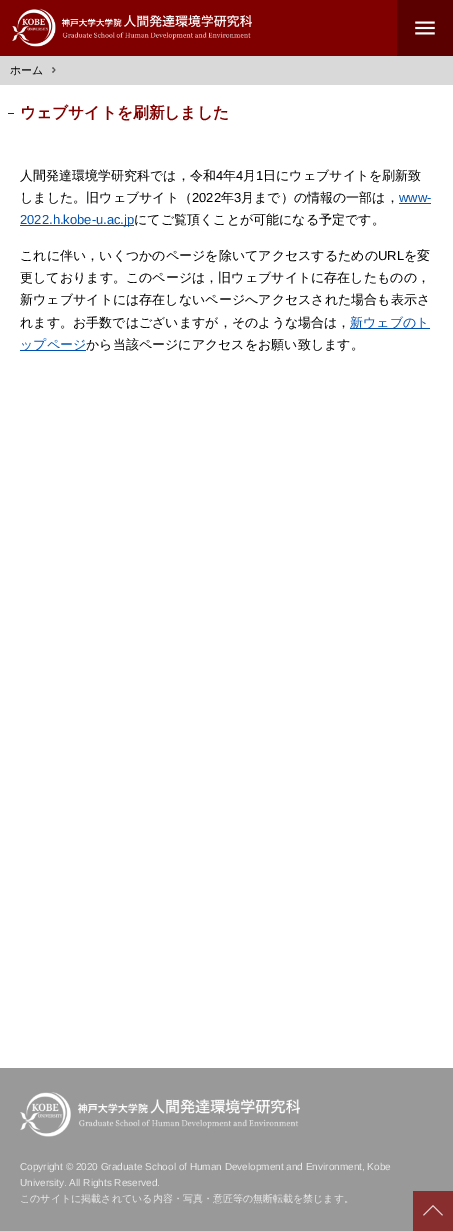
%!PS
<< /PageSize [453 1231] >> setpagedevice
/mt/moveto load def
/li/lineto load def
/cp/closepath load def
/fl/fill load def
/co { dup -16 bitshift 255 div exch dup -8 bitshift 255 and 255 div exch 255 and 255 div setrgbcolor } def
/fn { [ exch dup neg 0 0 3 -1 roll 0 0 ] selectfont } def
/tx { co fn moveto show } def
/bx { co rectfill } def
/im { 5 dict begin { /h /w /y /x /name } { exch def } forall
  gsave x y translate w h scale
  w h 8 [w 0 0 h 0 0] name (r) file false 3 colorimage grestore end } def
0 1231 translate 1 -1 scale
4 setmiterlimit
0 0 453 1231 16#FFFFFF bx
0 0 397 56 16#800000 bx
(media/1.raw) 12 8 240 39 im
397 0 56 56 16#5A0000 bx
(media/2.raw) 415 21 20 14 im
0 56 453 29 16#D9D9D9 bx
16#575757 co
53 67 mt 55.5 70 li 54.5 70 li 52 68 li cp 55.5 70 mt 53 73 li 52 72 li 54.5 70 li cp fl
8 113 6 1 16#800000 bx
399 203 32 1 16#0051B1 bx
20 225 114 1 16#0051B1 bx
350 328 80 1 16#0051B1 bx
20 350 66 1 16#0051B1 bx
0 1068 453 163 16#999999 bx
(media/3.raw) 20 1092 280 45 im
413 1191 40 40 16#882E2E bx
16#E7D5D5 co
423 1215 mt 433 1205 li 433 1206.5 li 424 1215.5 li cp 433 1205 mt 443 1215 li 442 1215.5 li 433 1206.5 li cp fl
(ホーム) 10 74 /WenQuanYiZenHei-Medium 11 16#000000 tx
(ウェブサイトを刷新しました) 20 118 /WenQuanYiZenHei-Bold 15.75 16#800000 tx
(人間発達環境学研究科では，令和) 20 180 /WenQuanYiZenHei-Medium 13 16#000000 tx
(4) 216 180 /LiberationSans-Regular 13 16#000000 tx
(年) 223 180 /WenQuanYiZenHei-Medium 13 16#000000 tx
(4) 236 180 /LiberationSans-Regular 13 16#000000 tx
(月) 243 180 /WenQuanYiZenHei-Medium 13 16#000000 tx
(1) 256 180 /LiberationSans-Regular 13 16#000000 tx
(日にウェブサイトを刷新致) 263 180 /WenQuanYiZenHei-Medium 13 16#000000 tx
(しました。旧ウェブサイト（) 20 202 /WenQuanYiZenHei-Medium 13 16#000000 tx
(2022) 192 202 /LiberationSans-Regular 13 16#000000 tx
(年) 221 202 /WenQuanYiZenHei-Medium 13 16#000000 tx
(3) 234 202 /LiberationSans-Regular 13 16#000000 tx
(月まで）の情報の一部は，) 241 202 /WenQuanYiZenHei-Medium 13 16#000000 tx
(www-) 399 202 /LiberationSans-Regular 13 16#0051B1 tx
(2022.h.kobe-u.ac.jp) 20 224 /LiberationSans-Regular 13 16#0051B1 tx
(にてご覧頂くことが可能になる予定です。) 134 224 /WenQuanYiZenHei-Medium 13 16#000000 tx
(これに伴い，いくつかのページを除いてアクセスするための) 20 260 /WenQuanYiZenHei-Medium 13 16#000000 tx
(URL) 378 260 /LiberationSans-Regular 13 16#000000 tx
(を変) 404 260 /WenQuanYiZenHei-Medium 13 16#000000 tx
(更しております。このページは，旧ウェブサイトに存在したものの，) 20 282 /WenQuanYiZenHei-Medium 13 16#000000 tx
(新ウェブサイトには存在しないページへアクセスされた場合も表示さ) 20 304 /WenQuanYiZenHei-Medium 13 16#000000 tx
(れます。お手数ではございますが，そのような場合は，) 20 327 /WenQuanYiZenHei-Medium 13 16#000000 tx
(新ウェブのト) 350 327 /WenQuanYiZenHei-Medium 13 16#0051B1 tx
(ップページ) 20 349 /WenQuanYiZenHei-Medium 13 16#0051B1 tx
(から当該ページにアクセスをお願い致します。) 86 349 /WenQuanYiZenHei-Medium 13 16#000000 tx
(Copyright © 2020 Graduate School of Human Development and Environment, Kobe) 20 1170 /LiberationSans-Regular 10 16#EBEBEB tx
(University. All Rights Reserved.) 20 1186 /LiberationSans-Regular 10 16#EBEBEB tx
(このサイトに掲載されている内容・写真・意匠等の無断転載を禁じます。) 20 1202 /WenQuanYiZenHei-Medium 10 16#EBEBEB tx
showpage
